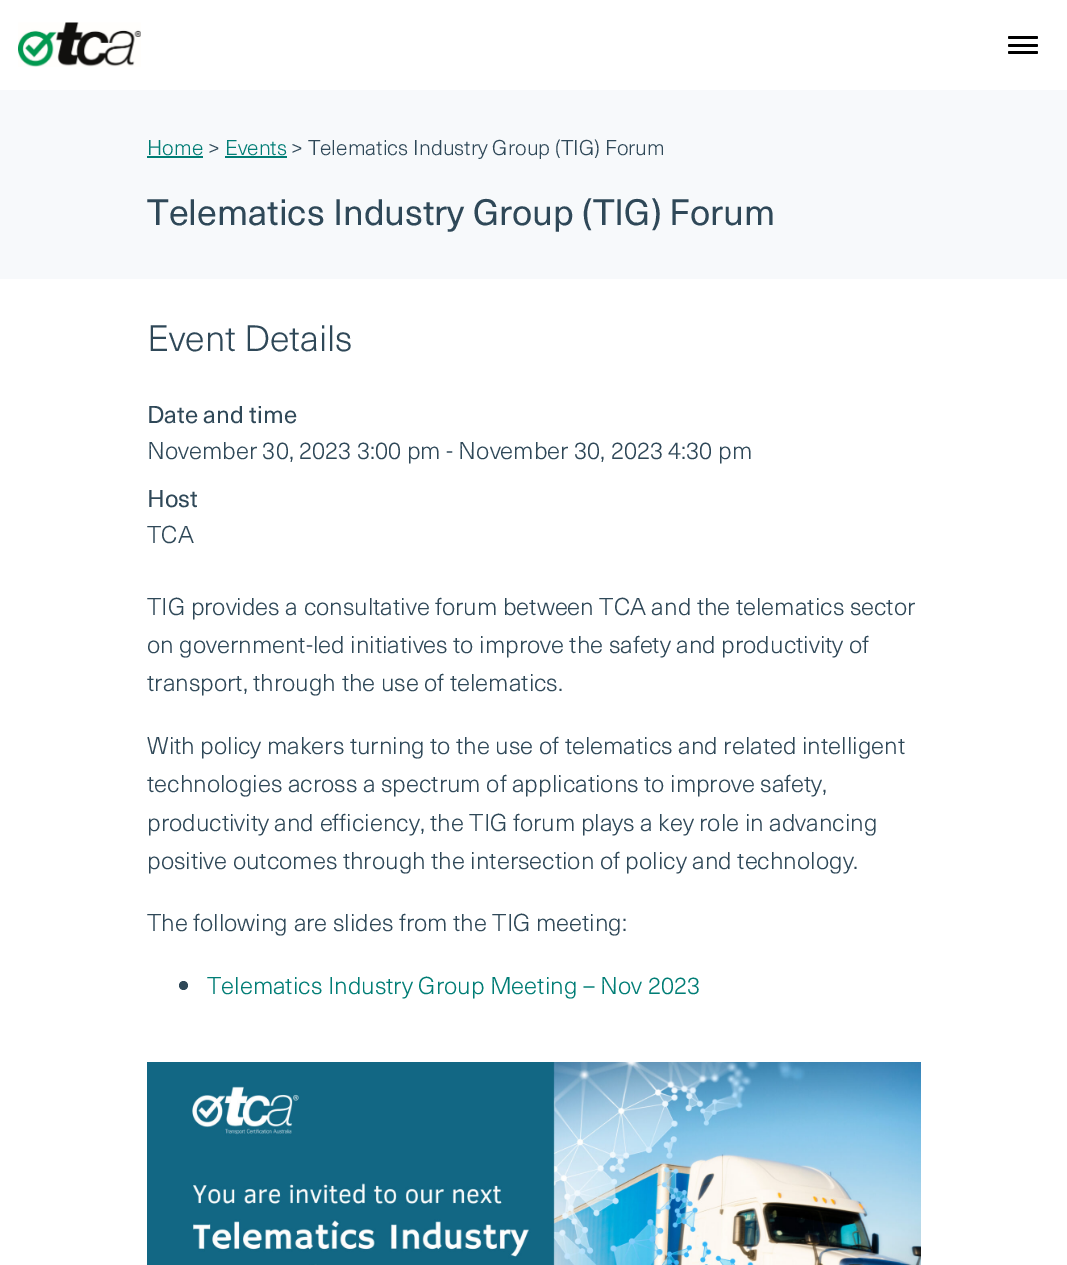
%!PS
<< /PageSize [1067 1265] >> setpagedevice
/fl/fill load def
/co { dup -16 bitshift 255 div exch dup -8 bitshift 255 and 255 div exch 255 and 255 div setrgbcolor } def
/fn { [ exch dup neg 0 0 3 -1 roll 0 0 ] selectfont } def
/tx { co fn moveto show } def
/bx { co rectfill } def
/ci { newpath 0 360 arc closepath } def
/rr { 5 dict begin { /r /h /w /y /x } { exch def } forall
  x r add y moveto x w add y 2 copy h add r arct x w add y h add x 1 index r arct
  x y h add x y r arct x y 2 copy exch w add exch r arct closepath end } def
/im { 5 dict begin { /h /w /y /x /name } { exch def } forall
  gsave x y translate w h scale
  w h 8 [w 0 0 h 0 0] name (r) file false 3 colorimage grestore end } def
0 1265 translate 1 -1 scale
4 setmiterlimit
0 0 1067 1265 16#FFFFFF bx
(media/1.raw) 18 22 123 45 im
16#000000 co
1008 36 30 3 1.5 rr fl
1008 44 30 3 1.5 rr fl
1008 51 30 3 1.5 rr fl
0 90 1067 189 16#F7F9FB bx
147 156 56 2 16#007D75 bx
225 156 62 2 16#007D75 bx
16#2F4858 co
183.5 985.5 4.5 ci fl
(media/2.raw) 147 1062 774 203 im
(Home) 147 155 /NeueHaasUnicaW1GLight-Light 21 16#007D75 tx
(>) 208 155 /NeueHaasUnicaW1GLight-Light 21 16#2F4858 tx
(Events) 225 155 /NeueHaasUnicaW1GLight-Light 21 16#007D75 tx
(> Telematics Industry Group \(TIG\) Forum) 291 155 /NeueHaasUnicaW1GLight-Light 21 16#2F4858 tx
(Telematics Industry Group \(TIG\) Forum) 147 225 /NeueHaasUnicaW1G-Regular 36 16#2F4858 tx
(Event Details) 147 351 /NeueHaasUnicaW1GLight-Light 36 16#2F4858 tx
(Date and time) 147 423 /NeueHaasUnicaW1G-Regular 24 16#2F4858 tx
(November 30, 2023 3:00 pm - November 30, 2023 4:30 pm) 147 459 /NeueHaasUnicaW1GLight-Light 24 16#2F4858 tx
(Host) 147 507 /NeueHaasUnicaW1G-Regular 24 16#2F4858 tx
(TCA) 147 543 /NeueHaasUnicaW1GLight-Light 24 16#2F4858 tx
(TIG provides a consultative forum between TCA and the telematics sector) 147 615 /NeueHaasUnicaW1GLight-Light 24 16#2F4858 tx
(on government-led initiatives to improve the safety and productivity of) 147 653 /NeueHaasUnicaW1GLight-Light 24 16#2F4858 tx
(transport, through the use of telematics.) 147 691 /NeueHaasUnicaW1GLight-Light 24 16#2F4858 tx
(With policy makers turning to the use of telematics and related intelligent) 147 754 /NeueHaasUnicaW1GLight-Light 24 16#2F4858 tx
(technologies across a spectrum of applications to improve safety,) 147 792 /NeueHaasUnicaW1GLight-Light 24 16#2F4858 tx
(productivity and efficiency, the TIG forum plays a key role in advancing) 147 831 /NeueHaasUnicaW1GLight-Light 24 16#2F4858 tx
(positive outcomes through the intersection of policy and technology.) 147 869 /NeueHaasUnicaW1GLight-Light 24 16#2F4858 tx
(The following are slides from the TIG meeting:) 147 931 /NeueHaasUnicaW1GLight-Light 24 16#2F4858 tx
(Telematics Industry Group Meeting – Nov 2023) 207 994 /NeueHaasUnicaW1GLight-Light 24 16#007D75 tx
showpage
